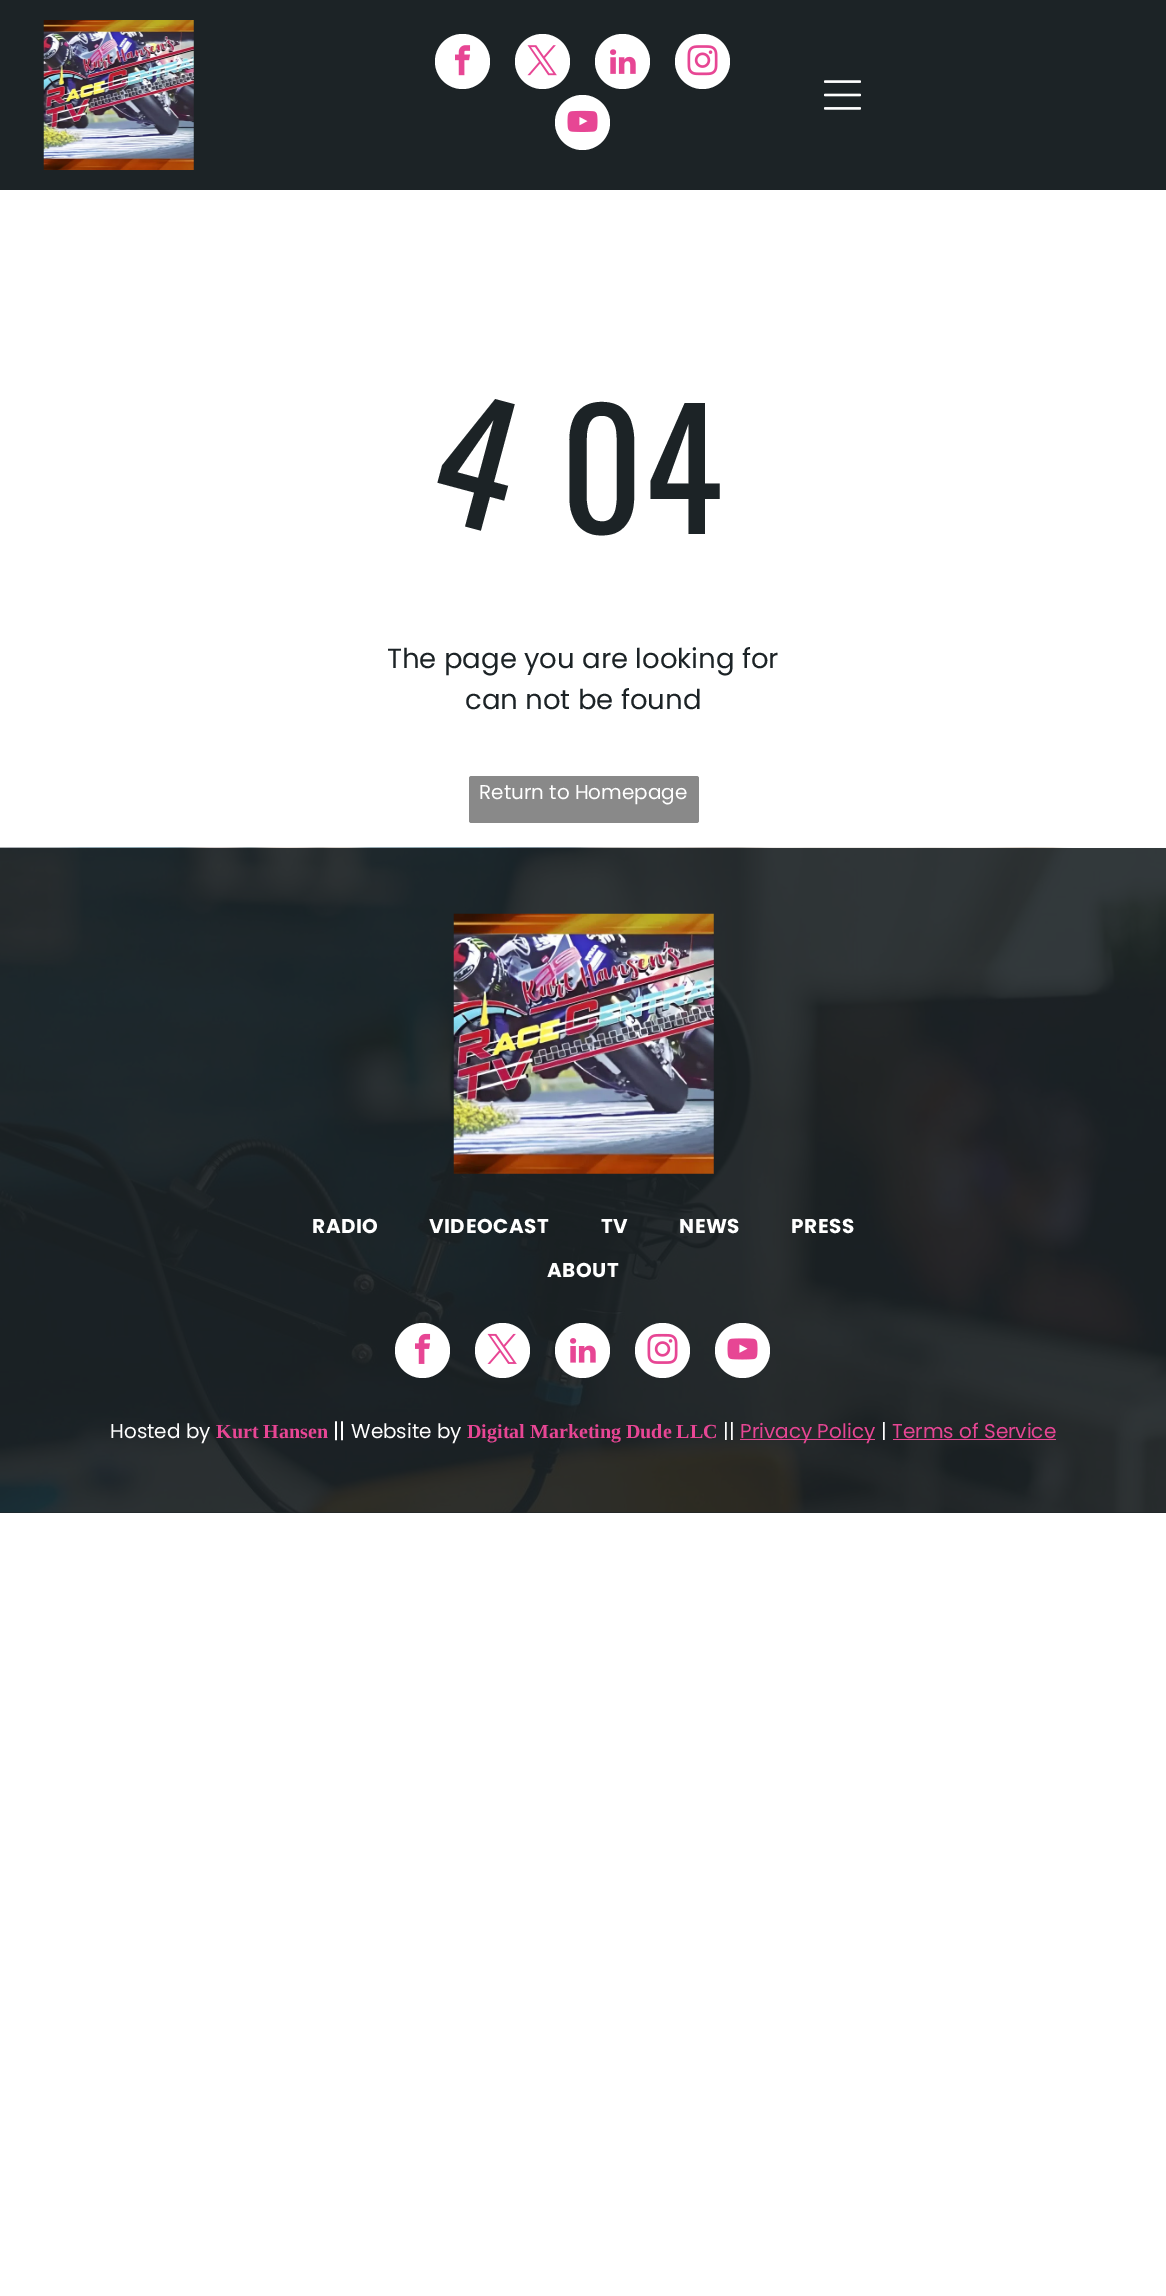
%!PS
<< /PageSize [1166 2296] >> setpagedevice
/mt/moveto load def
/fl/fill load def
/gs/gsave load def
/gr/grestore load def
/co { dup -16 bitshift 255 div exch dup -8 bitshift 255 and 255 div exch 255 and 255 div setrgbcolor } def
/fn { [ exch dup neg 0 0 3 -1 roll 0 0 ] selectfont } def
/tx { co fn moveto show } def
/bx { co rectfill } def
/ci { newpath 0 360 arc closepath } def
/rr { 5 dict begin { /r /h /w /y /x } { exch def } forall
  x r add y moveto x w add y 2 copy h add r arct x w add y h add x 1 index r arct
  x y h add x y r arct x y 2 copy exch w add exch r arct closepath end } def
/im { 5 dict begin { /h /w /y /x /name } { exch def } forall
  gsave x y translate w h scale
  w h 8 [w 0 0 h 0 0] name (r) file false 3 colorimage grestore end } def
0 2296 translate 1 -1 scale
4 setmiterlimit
0 0 1166 2296 16#FFFFFF bx
0 0 1166 190 16#1C2326 bx
(media/1.raw) 43 20 151 150 im
16#FFFFFF co
462.5 61.5 27.5 ci fl
(media/2.raw) 455 45 16 31 im
542.5 61.5 27.5 ci fl
(media/3.raw) 527 45 30 31 im
622.5 61.5 27.5 ci fl
(media/4.raw) 610 49 26 25 im
702.5 61.5 27.5 ci fl
(media/5.raw) 687 45 31 31 im
582.5 122.5 27.5 ci fl
(media/6.raw) 567 110 31 22 im
(media/7.raw) 824 80 37 30 im
16#898989 co
469 776 230 47 2.5 rr fl
0 1512 1166 1 16#1C2326 bx
(media/8.raw) 0 847 1166 666 im
(media/9.raw) 453 913 261 261 im
16#FFFFFF co
422.5 1350.5 27.5 ci fl
(media/10.raw) 415 1333 16 31 im
502.5 1350.5 27.5 ci fl
(media/11.raw) 487 1333 30 31 im
582.5 1350.5 27.5 ci fl
(media/12.raw) 570 1338 26 25 im
662.5 1350.5 27.5 ci fl
(media/13.raw) 647 1333 31 31 im
742.5 1350.5 27.5 ci fl
(media/14.raw) 727 1338 31 22 im
740 1439 135 1 16#E74694 bx
893 1439 163 1 16#E74694 bx
/Oswald-Regular 162 fn
16#1C2326 co
gs 422 515 translate 15 rotate 0 0 mt (4) show gr
(04) 560 534 /Oswald-Regular 162 16#1C2326 tx
(The page you are looking for) 387 668 /Poppins-Regular 27.5 16#1C2326 tx
(can not be found) 465 709 /Poppins-Regular 27.5 16#1C2326 tx
(Return to Homepage) 479 799 /Poppins-Regular 20 16#FFFFFF tx
/Poppins-Bold 20 fn
312 1233 mt .5 0 (RADIO) ashow
429 1233 mt .5 0 (VIDEOCAST) ashow
601 1233 mt .5 0 (TV) ashow
679 1233 mt .5 0 (NEWS) ashow
791 1233 mt .5 0 (PRESS) ashow
547 1277 mt .5 0 (ABOUT) ashow
(Hosted by) 110 1438 /Poppins-Regular 20 16#FFFFFF tx
(Kurt Hansen) 216 1438 /LiberationSerif-Bold 20 16#E74694 tx
(||) 333 1438 /Poppins-Regular 21 16#FFFFFF tx
(Website by) 351 1438 /Poppins-Regular 20 16#FFFFFF tx
(Digital Marketing Dude LLC) 467 1438 /LiberationSerif-Bold 20 16#E74694 tx
(||) 723 1438 /Poppins-Regular 20 16#FFFFFF tx
(Privacy Policy) 740 1438 /Poppins-Regular 20 16#E74694 tx
(|) 881 1438 /Poppins-Regular 20 16#FFFFFF tx
(Terms of Service) 892 1438 /Poppins-Regular 20 16#E74694 tx
showpage
